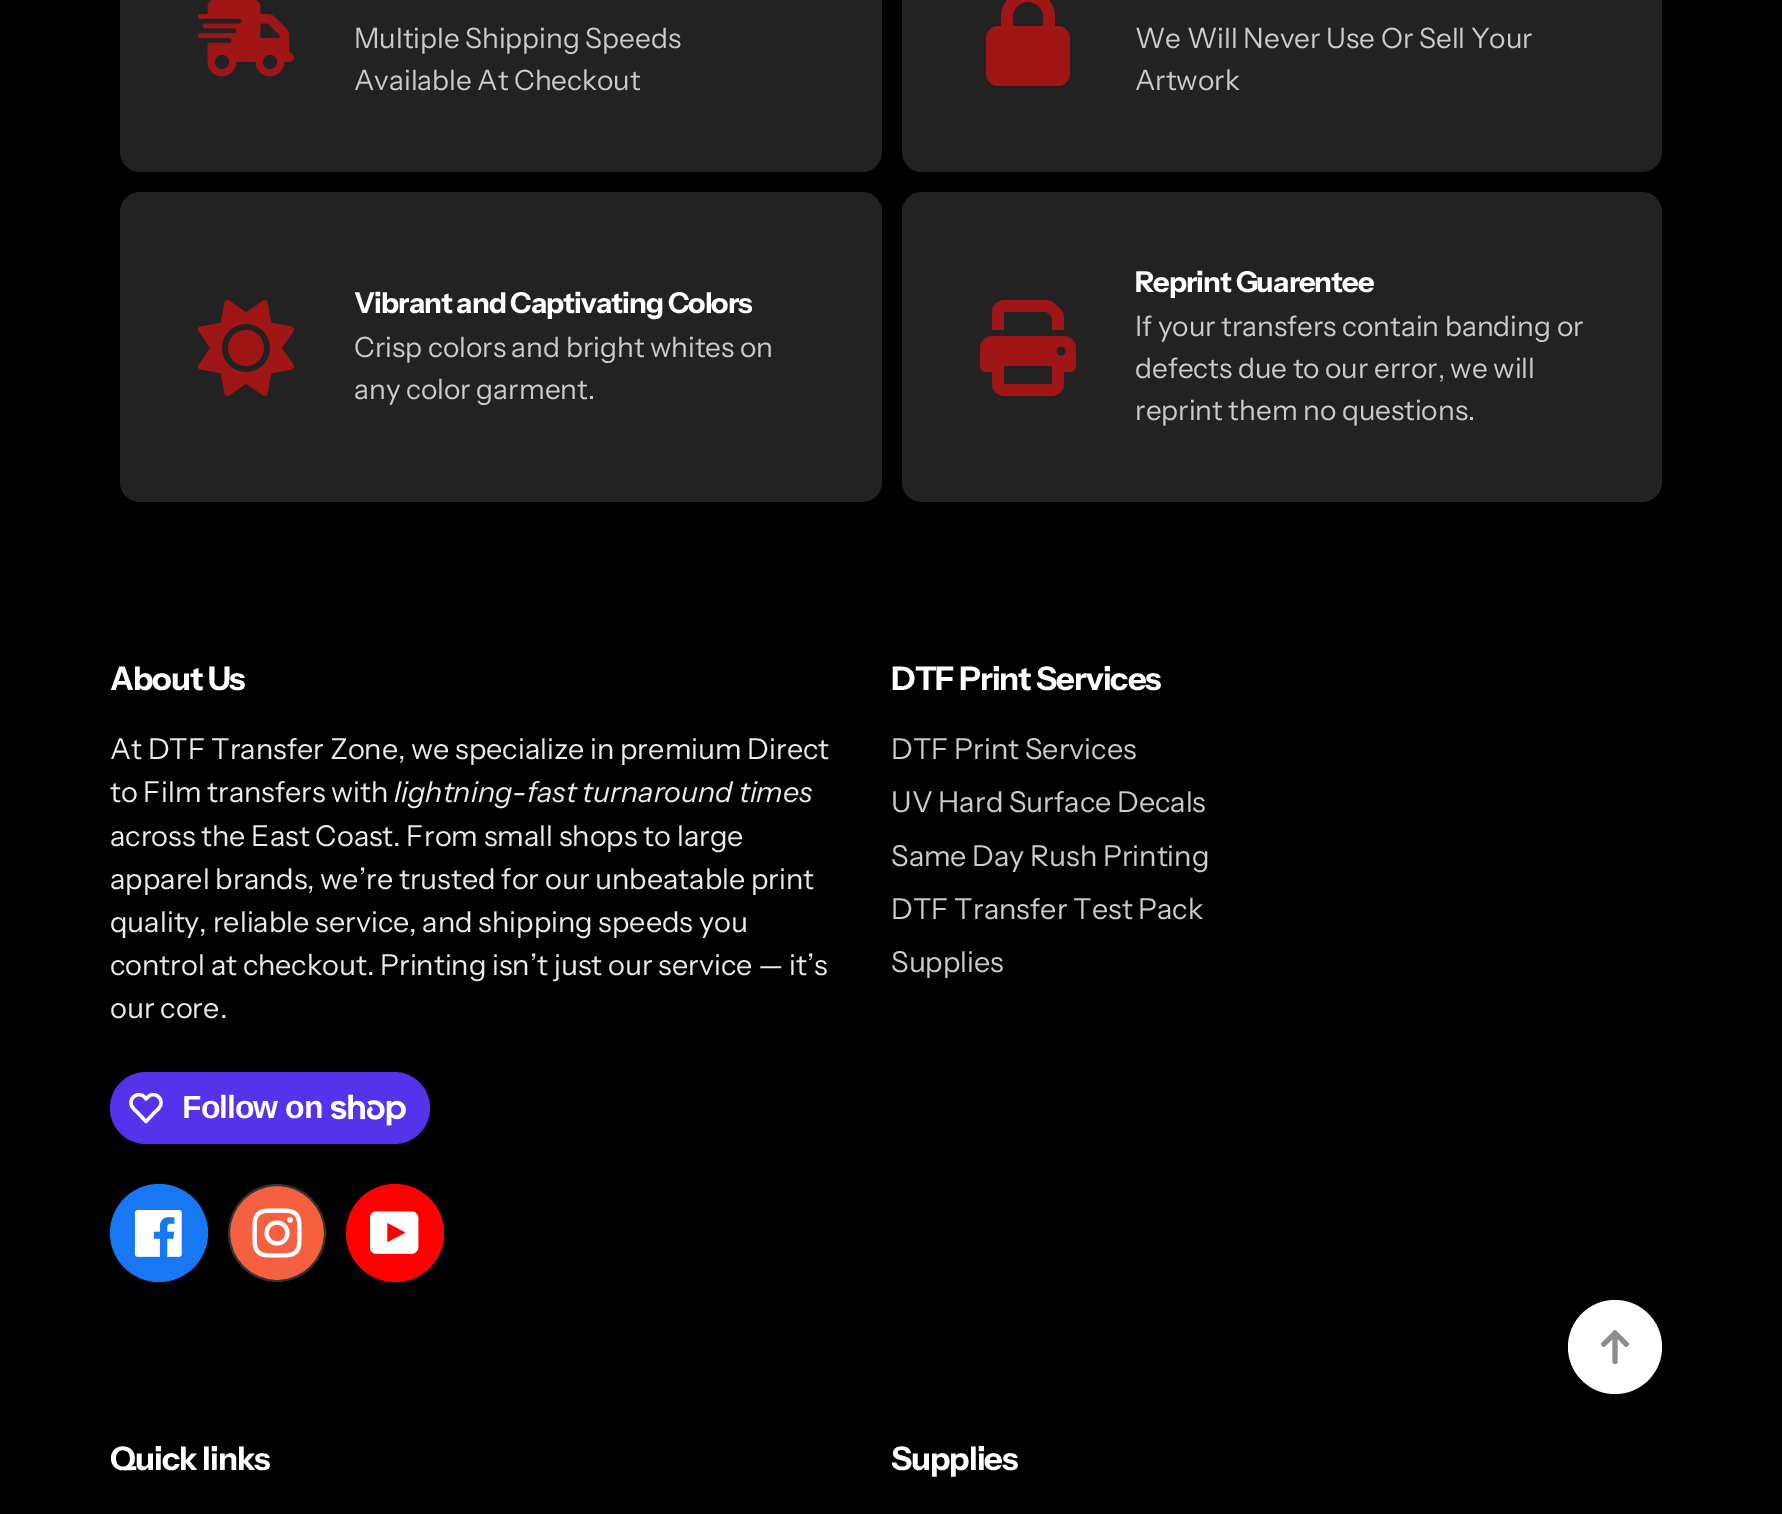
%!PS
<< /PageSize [1782 1514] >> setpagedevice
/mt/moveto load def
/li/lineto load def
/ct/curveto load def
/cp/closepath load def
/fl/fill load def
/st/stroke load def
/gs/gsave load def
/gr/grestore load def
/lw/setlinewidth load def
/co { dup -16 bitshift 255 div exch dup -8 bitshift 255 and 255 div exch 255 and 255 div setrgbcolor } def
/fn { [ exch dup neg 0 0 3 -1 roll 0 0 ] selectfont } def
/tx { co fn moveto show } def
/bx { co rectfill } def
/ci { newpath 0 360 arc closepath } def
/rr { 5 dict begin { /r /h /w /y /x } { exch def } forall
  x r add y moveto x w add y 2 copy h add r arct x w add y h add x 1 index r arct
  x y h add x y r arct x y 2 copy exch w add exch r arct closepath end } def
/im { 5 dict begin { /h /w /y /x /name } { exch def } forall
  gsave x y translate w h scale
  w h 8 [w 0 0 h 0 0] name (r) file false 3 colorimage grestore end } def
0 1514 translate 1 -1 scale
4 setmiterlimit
0 0 1782 1514 16#000000 bx
16#222222 co
120 -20 762 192 20 rr fl
(media/1.raw) 198 0 96 77 im
902 -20 760 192 20 rr fl
(media/2.raw) 986 0 84 86 im
120 192 762 310 20 rr fl
(media/3.raw) 198 300 96 96 im
902 192 760 310 20 rr fl
(media/4.raw) 980 300 96 96 im
16#5433EB co
110 1072 320 72 36 rr fl
16#FFFFFF co
3.3 lw
1 setlinejoin
144.5 1097 mt 146 1099 li 147.5 1097.5 149 1095.5 151 1095 ct 157 1093 163 1099.5 160.5 1105.5 ct 159.5 1108.5 156.5 1110.5 154.5 1112.5 ct 146 1121.5 li 137.5 1112.5 li 135.5 1110.5 132.5 1108.5 131.5 1105.5 ct 128.5 1097.5 138.5 1091 144.5 1097 ct cp st
(media/5.raw) 331 1094 75 32 im
16#1877F2 co
159 1233 49 ci fl
(media/6.raw) 134 1210 48 47 im
16#F56040 co
277 1233 48 ci gs fl gr
16#333333 co
2 lw
0 setlinejoin
st
(media/7.raw) 252 1208 50 50 im
16#FF0000 co
395 1233 49 ci fl
(media/8.raw) 370 1211 49 43 im
16#FFFFFF co
1615 1347 47 ci fl
(media/9.raw) 1600 1330 30 34 im
(Multiple Shipping Speeds) 354 48 /InstrumentSans-Regular 28 16#CCCCCC tx
(Available At Checkout) 354 90 /InstrumentSans-Regular 28 16#CCCCCC tx
(We Will Never Use Or Sell Your) 1135 48 /InstrumentSans-Regular 28 16#CCCCCC tx
(Artwork) 1135 90 /InstrumentSans-Regular 28 16#CCCCCC tx
/InstrumentSans-Bold 28.8 fn
16#FFFFFF co
354 313 mt -1 0 (Vibrant and Captivating Colors) ashow
(Crisp colors and bright whites on) 354 357 /InstrumentSans-Regular 28 16#CCCCCC tx
(any color garment.) 354 399 /InstrumentSans-Regular 28 16#CCCCCC tx
/InstrumentSans-Bold 28.8 fn
16#FFFFFF co
1135 292 mt -1 0 (Reprint Guarentee) ashow
(If your transfers contain banding or) 1135 336 /InstrumentSans-Regular 28 16#CCCCCC tx
(defects due to our error, we will) 1135 378 /InstrumentSans-Regular 28 16#CCCCCC tx
(reprint them no questions.) 1135 420 /InstrumentSans-Regular 28 16#CCCCCC tx
/InstrumentSans-Bold 32.5 fn
16#FFFFFF co
110 690 mt -1 0 (About Us) ashow
(At DTF Transfer Zone, we specialize in premium Direct) 110 759 /InstrumentSans-Regular 28.8 16#EBEBEB tx
(to Film transfers with) 110 802 /InstrumentSans-Regular 28.8 16#EBEBEB tx
(lightning-fast turnaround times) 394 802 /InstrumentSans-Italic 28.8 16#EBEBEB tx
(across the East Coast. From small shops to large) 110 846 /InstrumentSans-Regular 28.8 16#EBEBEB tx
(apparel brands, we’re trusted for our unbeatable print) 110 889 /InstrumentSans-Regular 28.8 16#EBEBEB tx
(quality, reliable service, and shipping speeds you) 110 932 /InstrumentSans-Regular 28.8 16#EBEBEB tx
(control at checkout. Printing isn’t just our service — it’s) 110 975 /InstrumentSans-Regular 28.8 16#EBEBEB tx
(our core.) 110 1018 /InstrumentSans-Regular 28.8 16#EBEBEB tx
/LiberationSans-Bold 32 fn
16#FFFFFF co
182 1118 mt -1 0 (Follow on) ashow
/InstrumentSans-Bold 32.5 fn
891 690 mt -1 0 (DTF Print Services) ashow
(DTF Print Services) 891 759 /InstrumentSans-Regular 28.8 16#CCCCCC tx
(UV Hard Surface Decals) 891 812 /InstrumentSans-Regular 28.8 16#CCCCCC tx
(Same Day Rush Printing) 891 866 /InstrumentSans-Regular 28.8 16#CCCCCC tx
(DTF Transfer Test Pack) 891 919 /InstrumentSans-Regular 28.8 16#CCCCCC tx
(Supplies) 891 972 /InstrumentSans-Regular 28.8 16#CCCCCC tx
/InstrumentSans-Bold 32.5 fn
16#FFFFFF co
110 1470 mt -1 0 (Quick links) ashow
891 1470 mt -1 0 (Supplies) ashow
showpage
